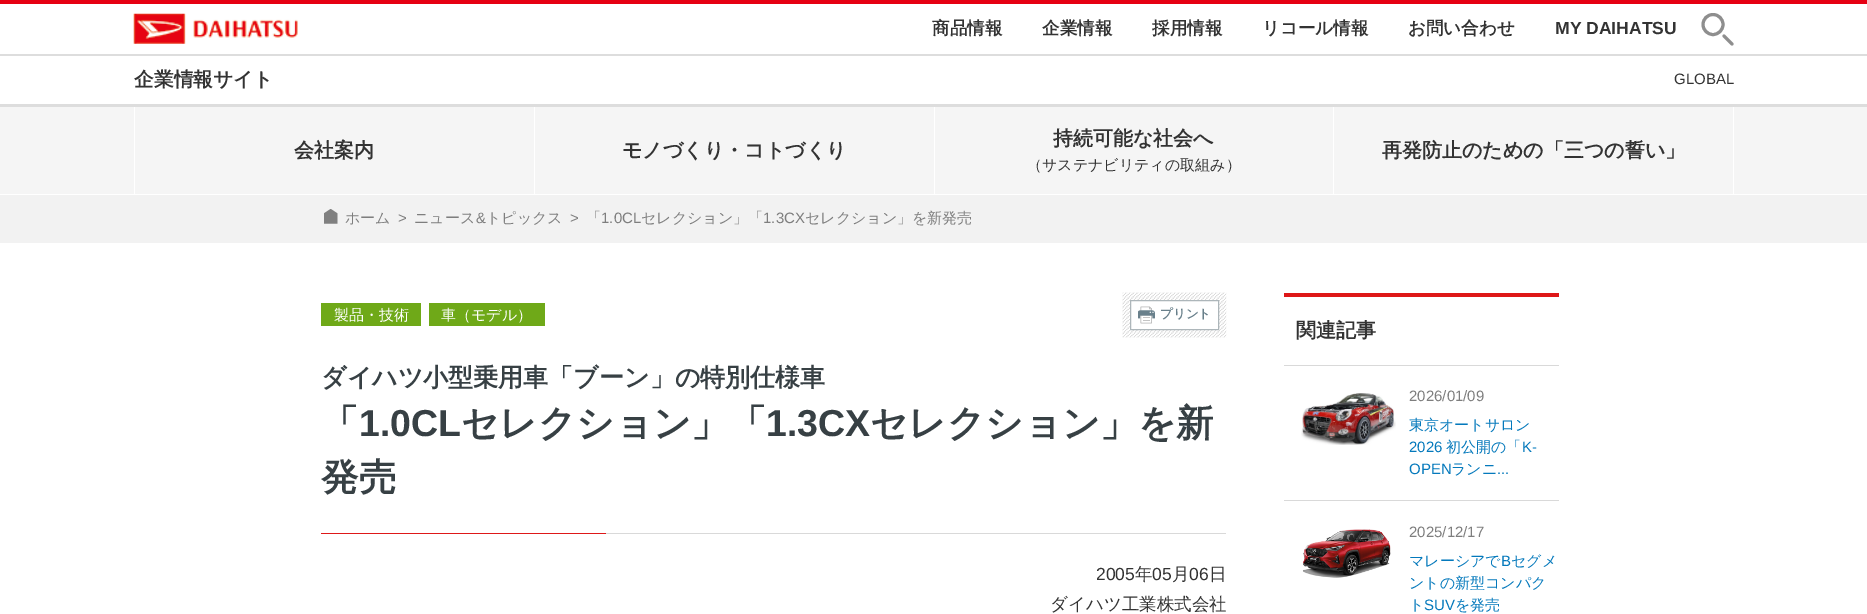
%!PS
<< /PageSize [1867 614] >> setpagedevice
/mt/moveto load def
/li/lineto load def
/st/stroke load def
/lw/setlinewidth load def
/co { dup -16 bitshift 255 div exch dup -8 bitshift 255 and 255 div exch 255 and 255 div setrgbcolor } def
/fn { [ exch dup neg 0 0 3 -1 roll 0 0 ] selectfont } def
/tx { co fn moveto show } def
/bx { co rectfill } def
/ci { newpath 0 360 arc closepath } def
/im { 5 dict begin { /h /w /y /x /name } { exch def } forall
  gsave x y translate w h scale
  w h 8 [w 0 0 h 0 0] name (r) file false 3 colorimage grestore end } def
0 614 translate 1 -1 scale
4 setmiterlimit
0 0 1867 614 16#FFFFFF bx
0 0 1867 4 16#E60012 bx
0 54 1867 2 16#DDDDDD bx
(media/1.raw) 133 13 165 31 im
16#8E8E8E co
3 lw
1713 24.5 10 ci st
1 setlinecap
1724 36 mt 1732 44 li st
0 107 1867 87 16#F5F5F5 bx
134 106 1 88 16#FFFFFF bx
534 106 1 88 16#FFFFFF bx
934 106 1 88 16#FFFFFF bx
1333 106 1 88 16#FFFFFF bx
1733 106 1 88 16#FFFFFF bx
0 104 1867 3 16#DDDDDD bx
0 195 1867 48 16#F2F2F2 bx
(media/2.raw) 324 209 14 15 im
321 303 100 23 16#6FA918 bx
429 303 116 23 16#6FA918 bx
(media/3.raw) 1122 292 105 46 im
1131 301 87 28 16#FFFFFF bx
(media/4.raw) 1138 306 17 18 im
16#ADB6BA co
1 lw
0 setlinecap
1130.5 300.5 88 29 rectstroke
606 533 620 1 16#D9D9D9 bx
321 533 285 1 16#DE1819 bx
1284 293 275 4 16#DE1718 bx
1284 365 275 1 16#D9D9D9 bx
1284 500 275 1 16#D9D9D9 bx
(media/5.raw) 1301 393 95 52 im
(media/6.raw) 1302 529 89 49 im
(商品情報) 932 34 /WenQuanYiZenHei-Bold 17.5 16#333333 tx
(企業情報) 1042 34 /WenQuanYiZenHei-Bold 17.5 16#333333 tx
(採用情報) 1152 34 /WenQuanYiZenHei-Bold 17.5 16#333333 tx
(リコール情報) 1262 34 /WenQuanYiZenHei-Bold 17.5 16#333333 tx
(お問い合わせ) 1408 34 /WenQuanYiZenHei-Bold 17.5 16#333333 tx
(MY DAIHATSU) 1555 34 /LiberationSans-Bold 17.5 16#333333 tx
(企業情報サイト) 134 86 /WenQuanYiZenHei-Bold 19.75 16#333333 tx
(GLOBAL) 1674 84 /LiberationSans-Regular 15 16#333333 tx
(会社案内) 294 157 /WenQuanYiZenHei-Bold 20 16#333333 tx
(モノづくり・コトづくり) 622 157 /WenQuanYiZenHei-Bold 20 16#333333 tx
(持続可能な社会へ) 1053 145 /WenQuanYiZenHei-Bold 20 16#333333 tx
(（サステナビリティの取組み）) 1027 170 /WenQuanYiZenHei-Medium 15 16#333333 tx
(再発防止のための「三つの誓い」) 1382 157 /WenQuanYiZenHei-Bold 20 16#333333 tx
(ホーム) 345 223 /WenQuanYiZenHei-Medium 15 16#7E7E7E tx
(>) 398 223 /LiberationSans-Regular 15 16#7E7E7E tx
(ニュース) 414 223 /WenQuanYiZenHei-Medium 15 16#7E7E7E tx
(&) 476 223 /LiberationSans-Regular 15 16#7E7E7E tx
(トピックス) 486 223 /WenQuanYiZenHei-Medium 15 16#7E7E7E tx
(>) 570 223 /LiberationSans-Regular 15 16#7E7E7E tx
(「) 586 223 /WenQuanYiZenHei-Medium 15 16#7E7E7E tx
(1.0CL) 601 223 /LiberationSans-Regular 15 16#7E7E7E tx
(セレクション」「) 641 223 /WenQuanYiZenHei-Medium 15 16#7E7E7E tx
(1.3CX) 763 223 /LiberationSans-Regular 15 16#7E7E7E tx
(セレクション」を新発売) 805 223 /WenQuanYiZenHei-Medium 15 16#7E7E7E tx
(製品・技術) 334 320 /WenQuanYiZenHei-Medium 15 16#FFFFFF tx
(車（モデル）) 441 320 /WenQuanYiZenHei-Medium 15 16#FFFFFF tx
(プリント) 1160 318 /WenQuanYiZenHei-Bold 12.5 16#69808B tx
(ダイハツ小型乗用車「ブーン」の特別仕様車) 321 386 /WenQuanYiZenHei-Bold 25 16#374044 tx
(「) 321 436 /WenQuanYiZenHei-Bold 37.5 16#374044 tx
(1.0CL) 359 436 /LiberationSans-Bold 37.5 16#374044 tx
(セレクション」「) 461 436 /WenQuanYiZenHei-Bold 37.5 16#374044 tx
(1.3CX) 766 436 /LiberationSans-Bold 37.5 16#374044 tx
(セレクション」を新) 870 436 /WenQuanYiZenHei-Bold 37.5 16#374044 tx
(発売) 321 490 /WenQuanYiZenHei-Bold 37.5 16#374044 tx
(2005) 1096 580 /LiberationSans-Regular 17.5 16#333333 tx
(年) 1135 580 /WenQuanYiZenHei-Medium 17.5 16#333333 tx
(05) 1152 580 /LiberationSans-Regular 17.5 16#333333 tx
(月) 1172 580 /WenQuanYiZenHei-Medium 17.5 16#333333 tx
(06) 1189 580 /LiberationSans-Regular 17.5 16#333333 tx
(日) 1209 580 /WenQuanYiZenHei-Medium 17.5 16#333333 tx
(ダイハツ工業株式会社) 1050 610 /WenQuanYiZenHei-Medium 17.5 16#333333 tx
(関連記事) 1296 337 /WenQuanYiZenHei-Bold 20 16#333333 tx
(2026/01/09) 1409 401 /LiberationSans-Regular 15 16#7E7E7E tx
(東京オートサロン) 1409 430 /WenQuanYiZenHei-Medium 15 16#0479BC tx
(2026) 1409 452 /LiberationSans-Regular 15 16#0479BC tx
(初公開の「) 1446 452 /WenQuanYiZenHei-Medium 15 16#0479BC tx
(K-) 1522 452 /LiberationSans-Regular 15 16#0479BC tx
(OPEN) 1409 474 /LiberationSans-Regular 15 16#0479BC tx
(ランニ) 1451 474 /WenQuanYiZenHei-Medium 15 16#0479BC tx
(...) 1497 474 /LiberationSans-Regular 15 16#0479BC tx
(2025/12/17) 1409 537 /LiberationSans-Regular 15 16#7E7E7E tx
(マレーシアで) 1409 566 /WenQuanYiZenHei-Medium 15 16#0479BC tx
(B) 1501 566 /LiberationSans-Regular 15 16#0479BC tx
(セグメ) 1511 566 /WenQuanYiZenHei-Medium 15 16#0479BC tx
(ントの新型コンパク) 1409 588 /WenQuanYiZenHei-Medium 15 16#0479BC tx
(ト) 1409 610 /WenQuanYiZenHei-Medium 15 16#0479BC tx
(SUV) 1424 610 /LiberationSans-Regular 15 16#0479BC tx
(を発売) 1455 610 /WenQuanYiZenHei-Medium 15 16#0479BC tx
showpage
